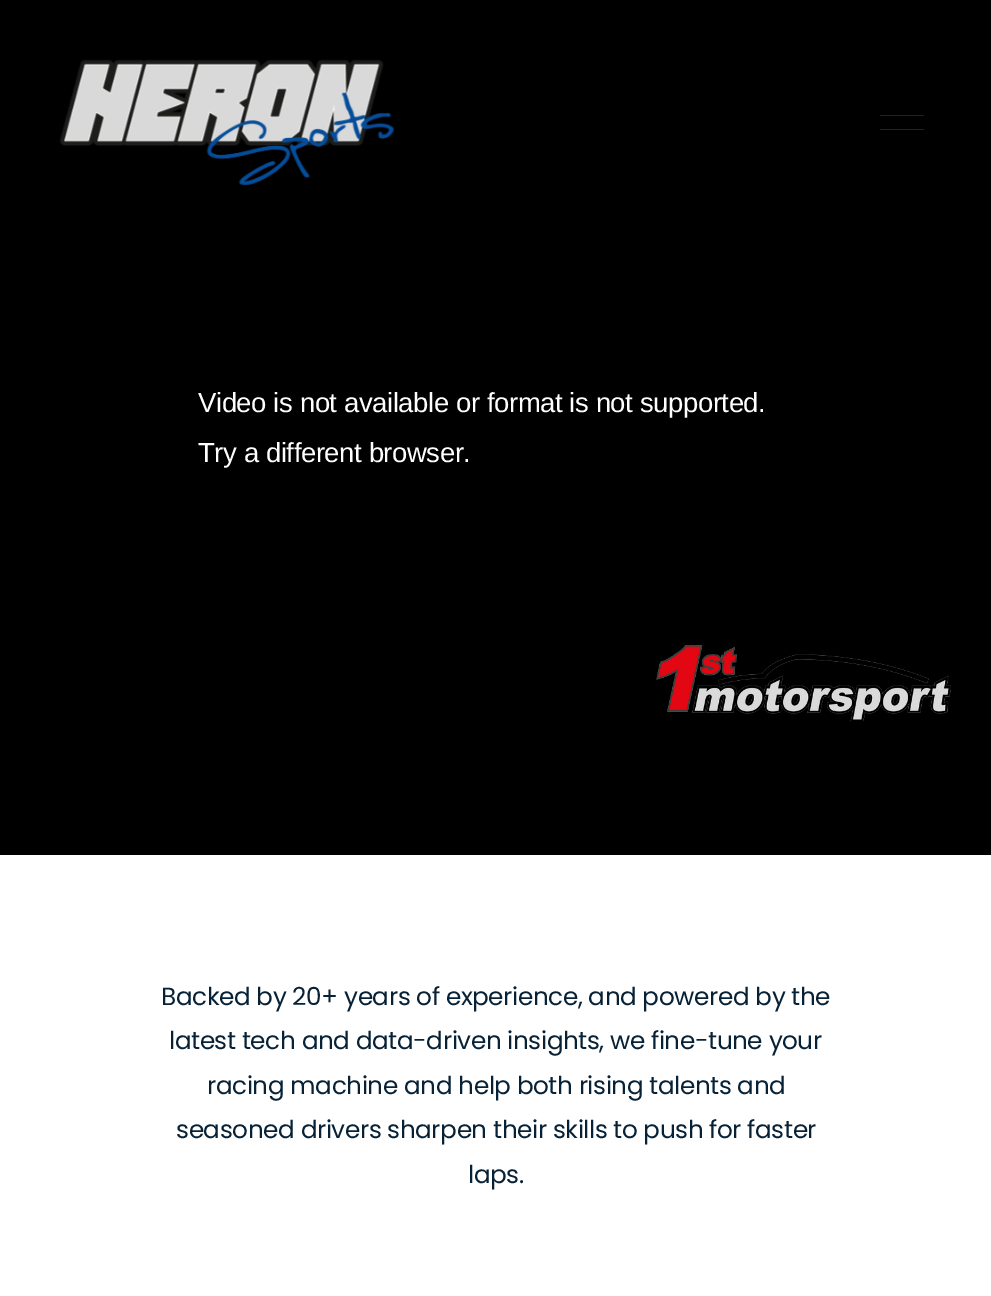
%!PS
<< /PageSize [991 1296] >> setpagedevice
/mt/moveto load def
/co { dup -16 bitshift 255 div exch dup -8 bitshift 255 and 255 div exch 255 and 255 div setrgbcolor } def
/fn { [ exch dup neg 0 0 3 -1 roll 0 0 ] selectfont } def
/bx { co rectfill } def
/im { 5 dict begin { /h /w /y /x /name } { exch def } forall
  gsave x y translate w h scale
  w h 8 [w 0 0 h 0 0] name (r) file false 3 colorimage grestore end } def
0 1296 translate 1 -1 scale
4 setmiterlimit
0 0 991 1296 16#000000 bx
(media/1.raw) 59 59 335 126 im
880 115 44 1 16#00265C bx
880 129 44 1 16#00265C bx
(media/2.raw) 656 645 295 77 im
0 855 991 441 16#FFFFFF bx
/LiberationSans-Regular 27.5 fn
198 412 mt -.42 0 (Video is not available or format is not supported.) ashow
198 462 mt -.42 0 (Try a different browser.) ashow
/Poppins-Regular 24.75 fn
16#072136 co
161 1005 mt -.42 0 (Backed by 20+ years of experience, and powered by the) ashow
169 1049 mt -.42 0 (latest tech and data-driven insights, we fine-tune your) ashow
207 1094 mt -.42 0 (racing machine and help both rising talents and) ashow
176 1138 mt -.42 0 (seasoned drivers sharpen their skills to push for faster) ashow
468 1183 mt -.42 0 (laps.) ashow
showpage
